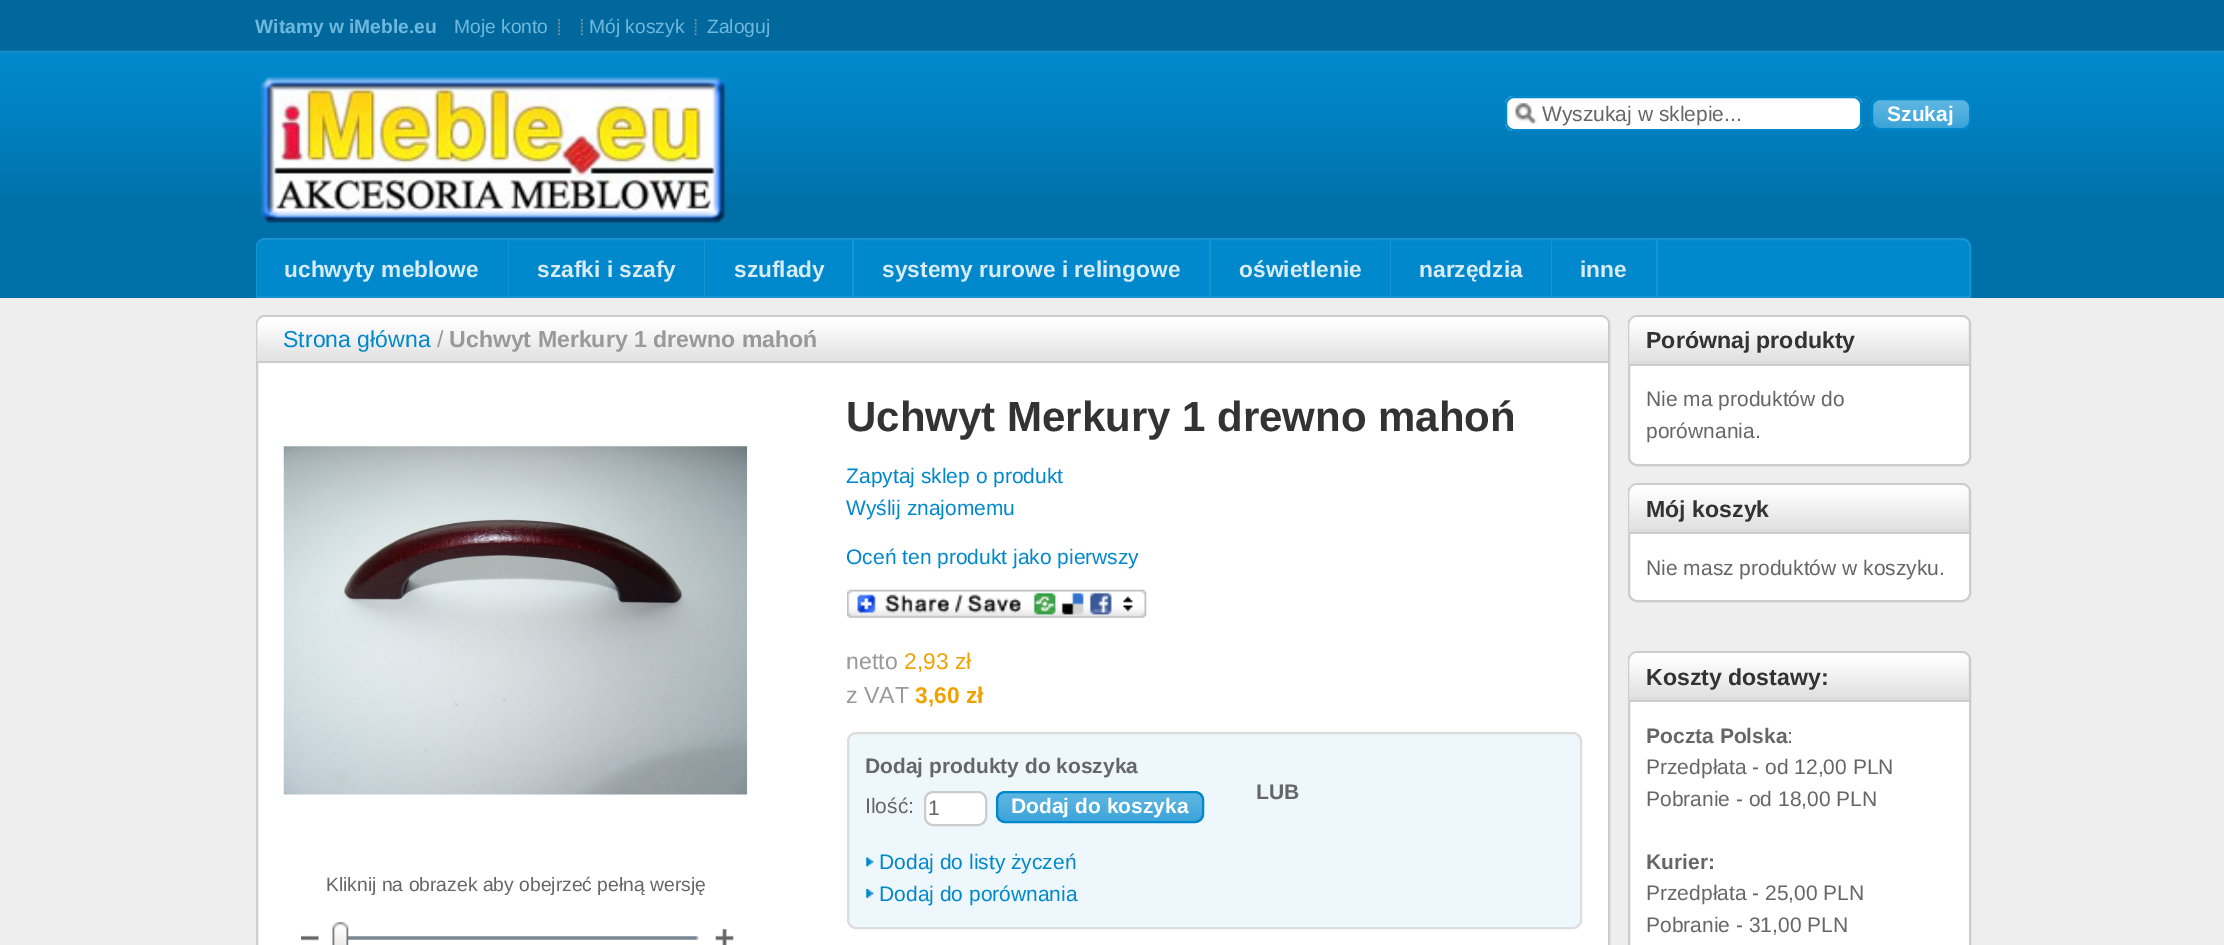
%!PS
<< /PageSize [2224 945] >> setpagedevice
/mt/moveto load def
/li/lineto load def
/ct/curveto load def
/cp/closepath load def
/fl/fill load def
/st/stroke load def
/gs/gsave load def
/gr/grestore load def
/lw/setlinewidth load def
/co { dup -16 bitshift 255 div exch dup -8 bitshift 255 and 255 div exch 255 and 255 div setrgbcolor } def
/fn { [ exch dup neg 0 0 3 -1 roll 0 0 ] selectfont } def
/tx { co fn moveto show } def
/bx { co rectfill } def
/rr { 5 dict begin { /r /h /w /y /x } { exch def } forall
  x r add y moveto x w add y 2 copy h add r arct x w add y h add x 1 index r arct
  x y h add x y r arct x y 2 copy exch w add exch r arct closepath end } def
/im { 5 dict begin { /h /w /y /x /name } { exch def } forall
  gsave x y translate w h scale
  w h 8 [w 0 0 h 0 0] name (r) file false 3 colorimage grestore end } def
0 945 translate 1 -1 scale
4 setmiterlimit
0 0 2224 945 16#0070A8 bx
(media/1.raw) 0 0 2224 194 im
(media/2.raw) 558 19 2 16 im
(media/3.raw) 581 19 2 16 im
(media/4.raw) 694 19 3 16 im
(media/5.raw) 260 76 467 148 im
16#FFFFFF co
1505 96 357 35 9 rr fl
(media/6.raw) 1515 103 22 22 im
16#0088CC co
2 lw
1506 97 355 33 8 rr st
(media/7.raw) 1870 99 101 31 im
1872 99 98 30 8 rr st
265 239 mt 1962 239 li 1966.5 239 1970 242.5 1970 247 ct 1970 297 li 257 297 li 257 247 li 257 242.5 260.5 239 265 239 ct cp gs fl gr
16#1994D2 co
st
508 240 1 56 16#1994D2 bx
16#0088CC co
266 241 mt 507 241 li 507 295 li 258 295 li 258 249 li 258 244.5 261.5 241 266 241 ct cp st
704 240 1 56 16#1994D2 bx
852 240 2 56 16#1994D2 bx
1209 240 2 56 16#1994D2 bx
1390 240 1 56 16#1994D2 bx
1551 240 1 56 16#1994D2 bx
1656 240 2 56 16#1994D2 bx
0 298 2224 647 16#EEEEEE bx
16#FFFFFF co
257 316 1352 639 8 rr gs fl gr
16#CCCCCC co
st
16#DDDDDD co
266 317 mt 1599 317 li 1604 317 1608 321 1608 326 ct 1608 362 li 257 362 li 257 326 li 257 321 261 317 266 317 ct cp fl
(media/8.raw) 257 317 1351 44 im
257 361 1351 2 16#CCCCCC bx
(media/9.raw) 283 446 465 349 im
(media/10.raw) 348 936 351 4 im
(media/11.raw) 301 935 18 6 im
(media/12.raw) 332 922 17 23 im
(media/13.raw) 715 929 19 16 im
(media/14.raw) 847 589 300 29 im
16#EDF7FC co
848 733 733 195 8 rr gs fl gr
16#DDDDDD co
st
16#FFFFFF co
925 792 61 33 8 rr gs fl gr
16#CCCCCC co
st
(media/15.raw) 995 792 209 31 im
16#0088CC co
997 792 206 30 8 rr st
(media/16.raw) 866 857 8 10 im
(media/17.raw) 866 889 8 9 im
16#FFFFFF co
1629 316 341 149 8 rr gs fl gr
16#CCCCCC co
st
16#DDDDDD co
1638 317 mt 1960 317 li 1965 317 1969 321 1969 326 ct 1969 366 li 1629 366 li 1629 326 li 1629 321 1633 317 1638 317 ct cp fl
(media/18.raw) 1629 317 340 44 im
1629 364 340 2 16#CCCCCC bx
16#FFFFFF co
1629 484 341 117 8 rr gs fl gr
16#CCCCCC co
st
16#DDDDDD co
1638 485 mt 1960 485 li 1965 485 1969 489 1969 494 ct 1969 534 li 1629 534 li 1629 494 li 1629 489 1633 485 1638 485 ct cp fl
(media/18.raw) 1629 485 340 44 im
1629 532 340 2 16#CCCCCC bx
16#FFFFFF co
1629 652 341 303 8 rr gs fl gr
16#CCCCCC co
st
16#DDDDDD co
1638 653 mt 1960 653 li 1965 653 1969 657 1969 662 ct 1969 702 li 1629 702 li 1629 662 li 1629 657 1633 653 1638 653 ct cp fl
(media/18.raw) 1629 653 340 44 im
1629 700 340 2 16#CCCCCC bx
(Witamy w iMeble.eu) 255 33 /LiberationSans-Bold 19.25 16#6EB8DD tx
(Moje konto) 454 33 /LiberationSans-Regular 19.25 16#6EB8DD tx
(Mój koszyk) 589 33 /LiberationSans-Regular 19.25 16#6EB8DD tx
(Zaloguj) 707 33 /LiberationSans-Regular 19.25 16#6EB8DD tx
(Wyszukaj w sklepie...) 1542 121 /LiberationSans-Regular 21 16#666666 tx
(Szukaj) 1887 121 /LiberationSans-Bold 21 16#FFFFFF tx
(uchwyty meblowe) 284 277 /LiberationSans-Bold 22.75 16#D7ECF6 tx
(szafki i szafy) 537 277 /LiberationSans-Bold 22.75 16#D7ECF6 tx
(szuflady) 734 277 /LiberationSans-Bold 22.75 16#D7ECF6 tx
(systemy rurowe i relingowe) 882 277 /LiberationSans-Bold 22.75 16#D7ECF6 tx
(oświetlenie) 1239 277 /LiberationSans-Bold 22.75 16#D7ECF6 tx
(narzędzia) 1419 277 /LiberationSans-Bold 22.75 16#D7ECF6 tx
(inne) 1580 277 /LiberationSans-Bold 22.75 16#D7ECF6 tx
(Strona główna) 283 347 /LiberationSans-Regular 23.1 16#0088CC tx
(/) 437 347 /LiberationSans-Regular 23.1 16#999999 tx
(Uchwyt Merkury 1 drewno mahoń) 449 347 /LiberationSans-Bold 23.1 16#999999 tx
(Kliknij na obrazek aby obejrzeć pełną wersję) 326 891 /LiberationSans-Regular 19.3 16#666666 tx
(Uchwyt Merkury 1 drewno mahoń) 846 431 /LiberationSans-Bold 42 16#333333 tx
(Zapytaj sklep o produkt) 846 483 /LiberationSans-Regular 21 16#0088CC tx
(Wyślij znajomemu) 846 515 /LiberationSans-Regular 21 16#0088CC tx
(Oceń ten produkt jako pierwszy) 846 564 /LiberationSans-Regular 21 16#0088CC tx
(netto) 846 669 /LiberationSans-Regular 23.1 16#999999 tx
(2,93 zł) 904 669 /LiberationSans-Regular 22.75 16#F0A300 tx
(z VAT) 846 703 /LiberationSans-Regular 23.1 16#999999 tx
(3,60 zł) 915 703 /LiberationSans-Bold 22.75 16#F0A300 tx
(Dodaj produkty do koszyka) 865 773 /LiberationSans-Bold 21 16#666666 tx
(Ilość:) 865 813 /LiberationSans-Regular 21 16#666666 tx
(1) 928 815 /LiberationSans-Regular 21 16#666666 tx
(Dodaj do koszyka) 1011 813 /LiberationSans-Bold 21 16#FFFFFF tx
(LUB) 1256 799 /LiberationSans-Bold 21 16#666666 tx
(Dodaj do listy życzeń) 879 869 /LiberationSans-Regular 21 16#0088CC tx
(Dodaj do porównania) 879 901 /LiberationSans-Regular 21 16#0088CC tx
(Porównaj produkty) 1646 348 /LiberationSans-Bold 23.1 16#333333 tx
(Nie ma produktów do) 1646 406 /LiberationSans-Regular 21 16#666666 tx
(porównania.) 1646 438 /LiberationSans-Regular 21 16#666666 tx
(Mój koszyk) 1646 517 /LiberationSans-Bold 23.1 16#333333 tx
(Nie masz produktów w koszyku.) 1646 575 /LiberationSans-Regular 21 16#666666 tx
(Koszty dostawy:) 1646 685 /LiberationSans-Bold 23.1 16#333333 tx
(Poczta Polska) 1646 743 /LiberationSans-Bold 21 16#666666 tx
(:) 1787 743 /LiberationSans-Regular 21 16#666666 tx
(Przedpłata - od 12,00 PLN) 1646 774 /LiberationSans-Regular 21 16#666666 tx
(Pobranie - od 18,00 PLN) 1646 806 /LiberationSans-Regular 21 16#666666 tx
(Kurier:) 1646 869 /LiberationSans-Bold 21 16#666666 tx
(Przedpłata - 25,00 PLN) 1646 900 /LiberationSans-Regular 21 16#666666 tx
(Pobranie - 31,00 PLN) 1646 932 /LiberationSans-Regular 21 16#666666 tx
showpage
